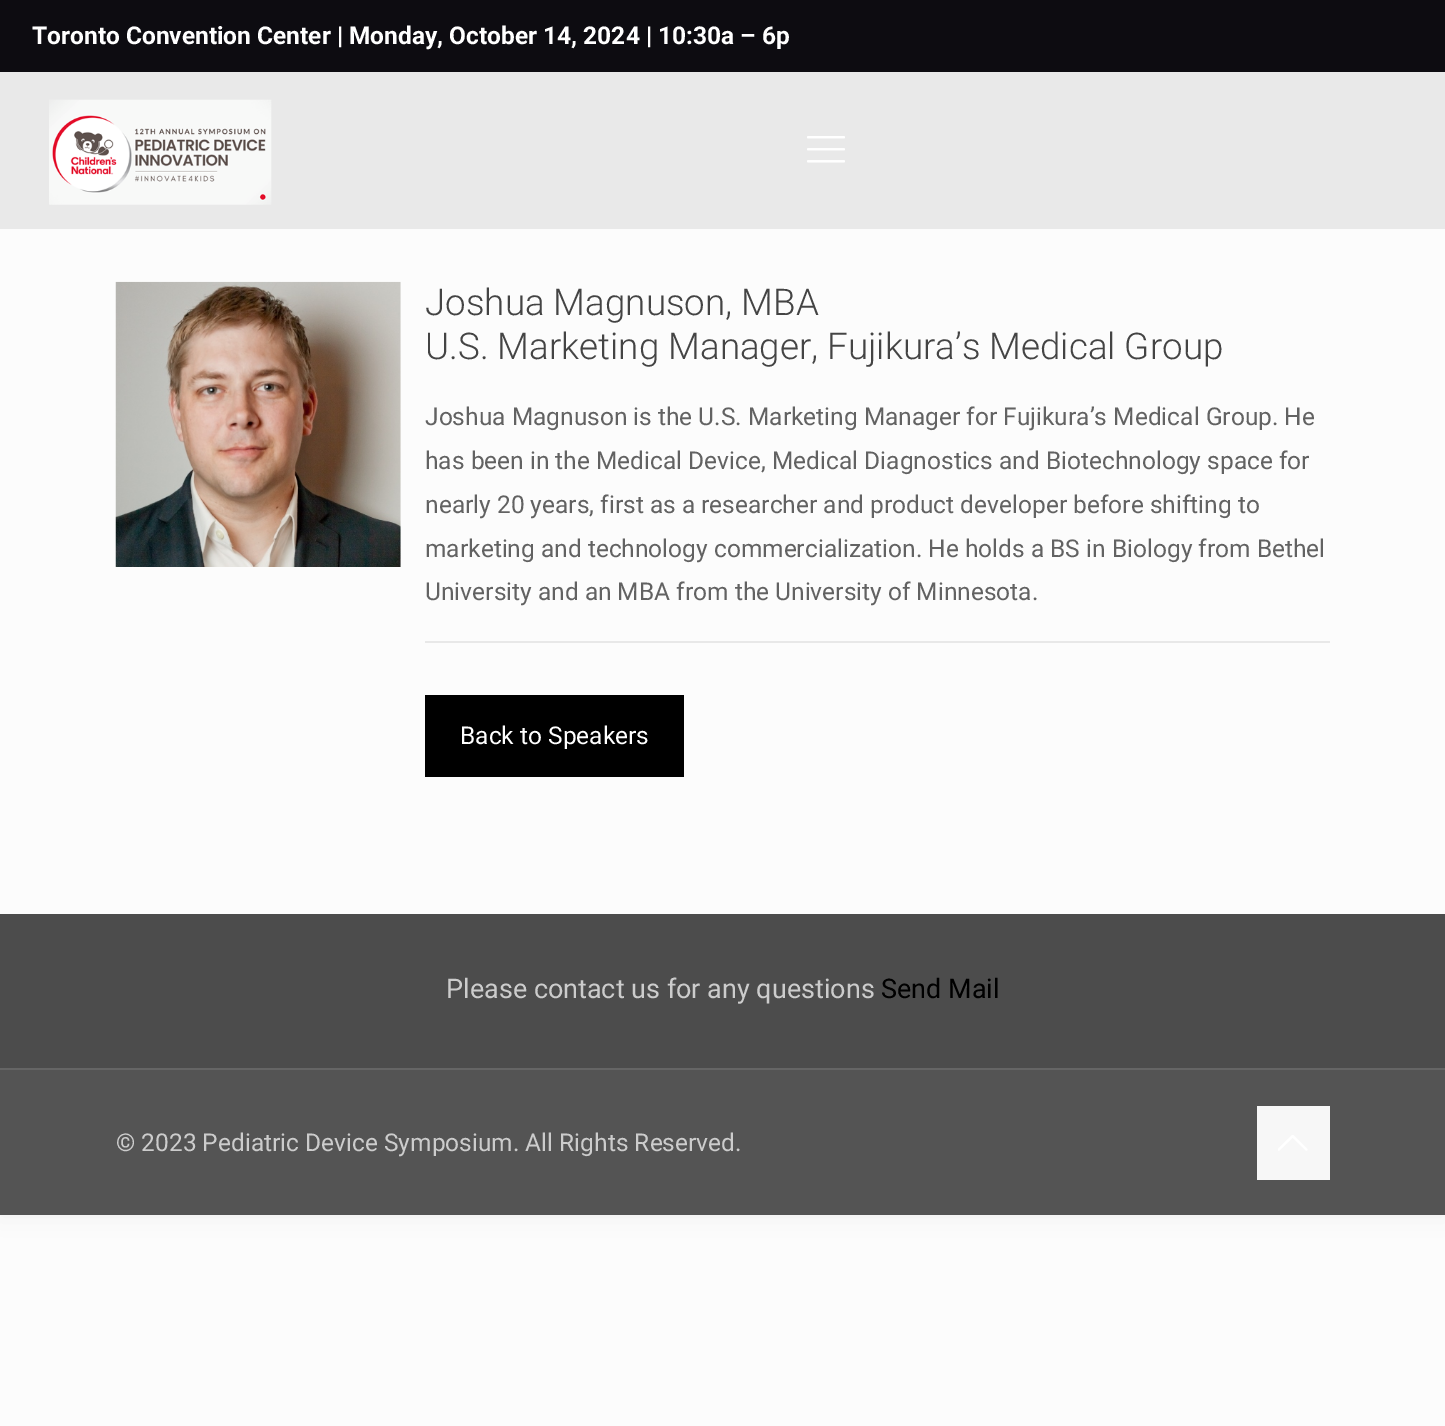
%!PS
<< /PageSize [1445 1426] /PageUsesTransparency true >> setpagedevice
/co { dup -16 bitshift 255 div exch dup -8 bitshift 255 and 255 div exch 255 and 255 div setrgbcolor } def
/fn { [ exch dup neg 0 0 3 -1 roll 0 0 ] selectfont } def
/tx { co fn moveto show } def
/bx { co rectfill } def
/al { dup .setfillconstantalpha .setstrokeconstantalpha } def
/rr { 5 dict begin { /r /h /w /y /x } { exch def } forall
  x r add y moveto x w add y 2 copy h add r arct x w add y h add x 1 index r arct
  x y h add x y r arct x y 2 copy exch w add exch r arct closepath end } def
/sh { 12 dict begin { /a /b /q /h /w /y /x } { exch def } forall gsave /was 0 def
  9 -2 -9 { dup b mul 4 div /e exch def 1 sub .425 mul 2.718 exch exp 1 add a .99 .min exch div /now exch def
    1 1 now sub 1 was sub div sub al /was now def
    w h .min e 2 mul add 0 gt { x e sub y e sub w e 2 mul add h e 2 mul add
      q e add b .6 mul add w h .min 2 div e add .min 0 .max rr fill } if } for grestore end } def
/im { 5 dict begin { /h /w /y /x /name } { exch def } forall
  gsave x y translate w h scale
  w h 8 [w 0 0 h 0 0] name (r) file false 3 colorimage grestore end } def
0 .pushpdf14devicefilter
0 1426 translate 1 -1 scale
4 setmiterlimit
0 0 1445 1426 16#FCFCFC bx
16#000000 co
0 0 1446 1215 0 13 .06 sh
0 229 1445 685 16#FCFCFC bx
0 0 1445 72 16#0D0C11 bx
0 72 1445 157 16#E9E9E9 bx
(media/1.raw) 49 99 223 106 im
(media/2.raw) 807 136 38 27 im
(media/3.raw) 115 281 286 286 im
425 641 905 2 16#E8E8E8 bx
425 695 259 82 16#000000 bx
0 1070 1445 145 16#545454 bx
0 914 1445 154 16#4C4C4C bx
0 1068 1445 2 16#656565 bx
1257 1106 73 74 16#F7F7F7 bx
(media/4.raw) 1278 1135 30 16 im
(Toronto Convention Center | Monday, October 14, 2024 | 10:30a – 6p) 32 44 /Roboto-Bold 24.5 16#FFFFFF tx
(Joshua Magnuson, MBA) 425 315 /Roboto-Light 36.75 16#444444 tx
(U.S. Marketing Manager, Fujikura’s Medical Group) 425 359 /Roboto-Light 36.75 16#444444 tx
(Joshua Magnuson is the U.S. Marketing Manager for Fujikura’s Medical Group. He) 425 425 /Roboto-Regular 24.5 16#626262 tx
(has been in the Medical Device, Medical Diagnostics and Biotechnology space for) 425 469 /Roboto-Regular 24.5 16#626262 tx
(nearly 20 years, first as a researcher and product developer before shifting to) 425 513 /Roboto-Regular 24.5 16#626262 tx
(marketing and technology commercialization. He holds a BS in Biology from Bethel) 425 557 /Roboto-Regular 24.5 16#626262 tx
(University and an MBA from the University of Minnesota.) 425 600 /Roboto-Regular 24.5 16#626262 tx
(Back to Speakers) 460 744 /Roboto-Regular 24.5 16#FFFFFF tx
(Please contact us for any questions) 446 998 /Roboto-Regular 27 16#CCCCCC tx
(Send Mail) 881 998 /Roboto-Regular 27 16#000000 tx
(© 2023 Pediatric Device Symposium. All Rights Reserved.) 116 1151 /Roboto-Regular 24.5 16#CCCCCC tx
.poppdf14devicefilter showpage
